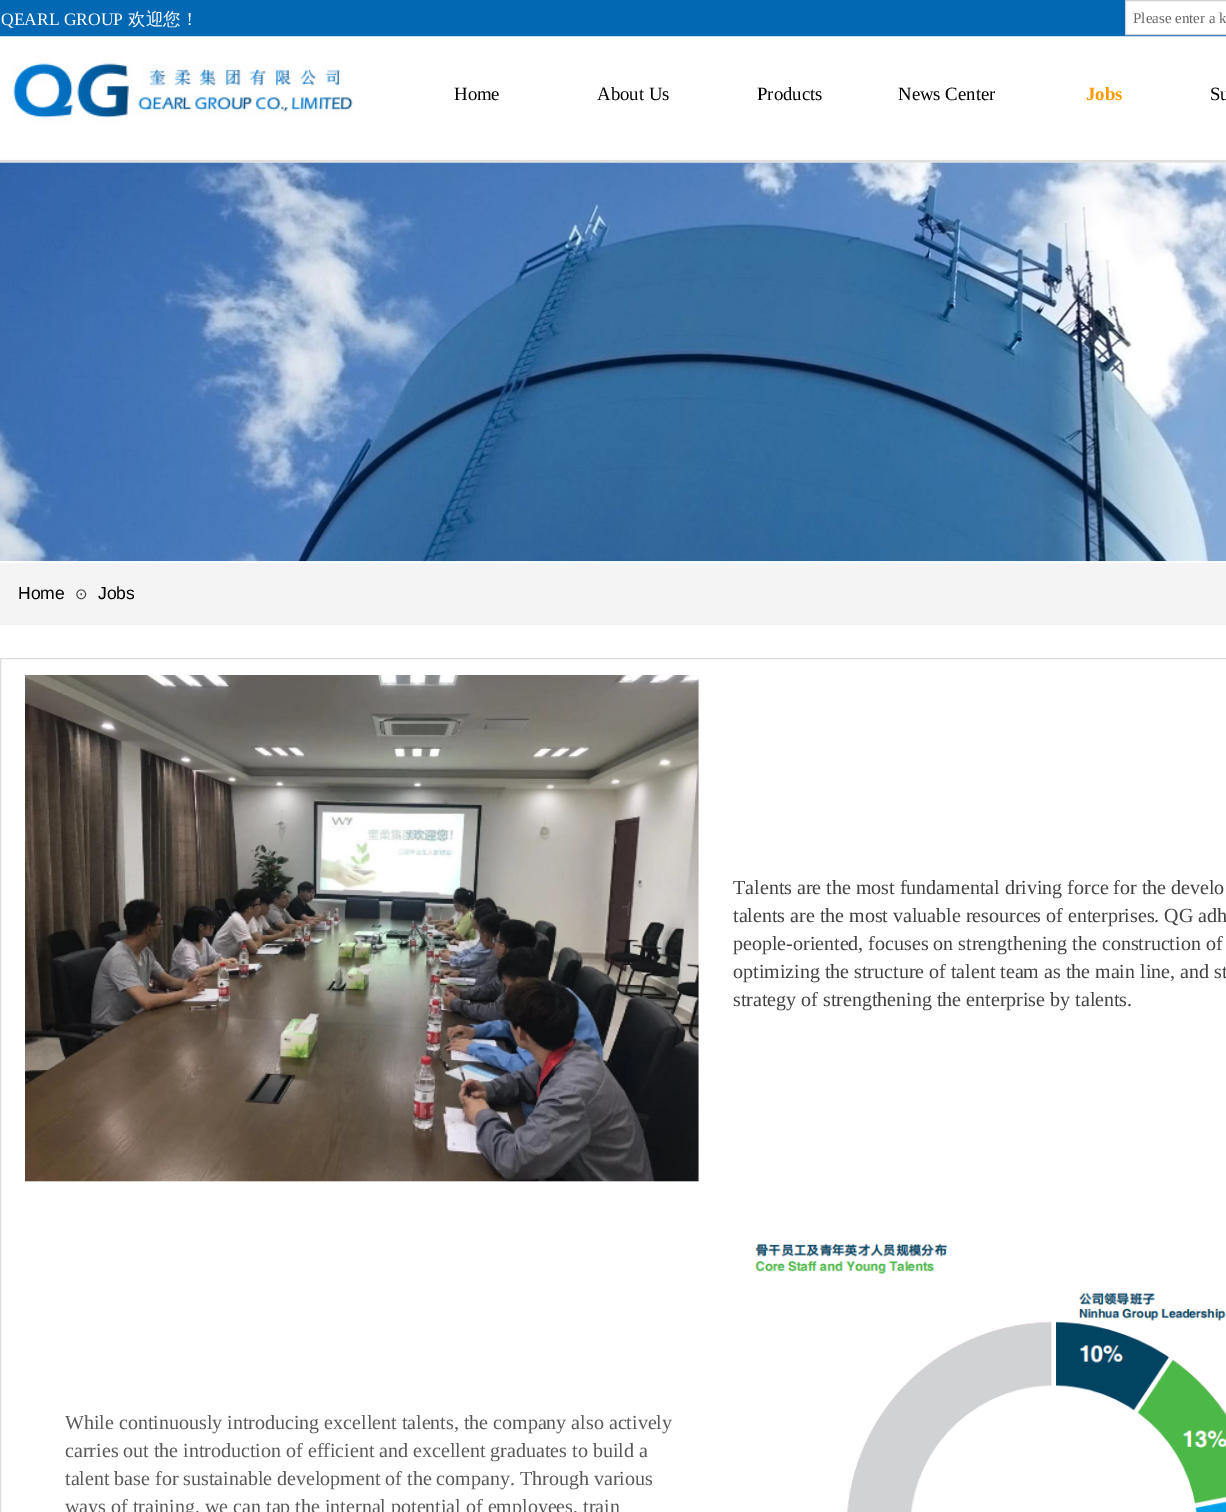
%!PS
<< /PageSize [1226 1512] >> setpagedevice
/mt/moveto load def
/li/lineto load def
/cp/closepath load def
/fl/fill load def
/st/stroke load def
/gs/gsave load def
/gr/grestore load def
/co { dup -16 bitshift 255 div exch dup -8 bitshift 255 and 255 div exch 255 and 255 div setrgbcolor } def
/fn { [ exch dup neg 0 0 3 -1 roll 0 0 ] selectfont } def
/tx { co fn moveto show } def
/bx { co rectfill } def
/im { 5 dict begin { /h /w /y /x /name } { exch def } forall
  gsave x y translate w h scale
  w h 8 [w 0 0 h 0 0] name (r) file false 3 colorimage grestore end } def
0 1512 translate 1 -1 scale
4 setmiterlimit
0 0 1226 1512 16#FFFFFF bx
0 0 1226 37 16#0268B4 bx
16#FFFFFF co
1125.5 .5 mt 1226.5 .5 li 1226.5 34.5 li 1125.5 34.5 li cp gs fl gr
16#D3D3D3 co
st
(media/1.raw) 0 36 1226 127 im
(media/2.raw) 13 56 340 69 im
(media/3.raw) 0 162 1226 400 im
0 563 1226 62 16#F4F4F4 bx
16#DDDDDD co
.5 658.5 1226 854 rectstroke
(media/4.raw) 25 675 674 507 im
(media/5.raw) 755 1243 471 269 im
(QEARL GROUP) 1 25 /LiberationSerif-Regular 17.5 16#FFFFFF tx
(欢迎您！) 128 25 /WenQuanYiZenHei-Medium 17.5 16#FFFFFF tx
(Please enter a k) 1133 23 /LiberationSerif-Regular 15 16#666666 tx
(Home) 454 100 /LiberationSerif-Regular 18.75 16#000000 tx
(About Us) 597 100 /LiberationSerif-Regular 18.75 16#000000 tx
(Products) 757 100 /LiberationSerif-Regular 18.75 16#000000 tx
(News Center) 898 100 /LiberationSerif-Regular 18.75 16#000000 tx
(Jobs) 1086 100 /LiberationSerif-Bold 18.75 16#FF9900 tx
(Su) 1210 100 /LiberationSerif-Regular 18.75 16#000000 tx
(Home) 18 599 /LiberationSans-Regular 17.5 16#000000 tx
(⊙) 75 599 /DejaVuSans-Regular 15 16#434343 tx
(Jobs) 98 599 /LiberationSans-Regular 17.5 16#000000 tx
gs
733 874 493 166 rectclip
(Talents are the most fundamental driving force for the develo) 733 894 /LiberationSerif-Regular 20 16#434343 tx
gr
(talents are the most valuable resources of enterprises. QG adh) 733 922 /LiberationSerif-Regular 20 16#434343 tx
(people-oriented, focuses on strengthening the construction of) 733 950 /LiberationSerif-Regular 20 16#434343 tx
(optimizing the structure of talent team as the main line, and st) 733 978 /LiberationSerif-Regular 20 16#434343 tx
(strategy of strengthening the enterprise by talents.) 733 1006 /LiberationSerif-Regular 20 16#434343 tx
(While continuously introducing excellent talents, the company also actively) 65 1429 /LiberationSerif-Regular 20 16#5A5A5A tx
(carries out the introduction of efficient and excellent graduates to build a) 65 1457 /LiberationSerif-Regular 20 16#5A5A5A tx
(talent base for sustainable development of the company. Through various) 65 1485 /LiberationSerif-Regular 20 16#5A5A5A tx
(ways of training, we can tap the internal potential of employees, train) 65 1513 /LiberationSerif-Regular 20 16#5A5A5A tx
showpage
